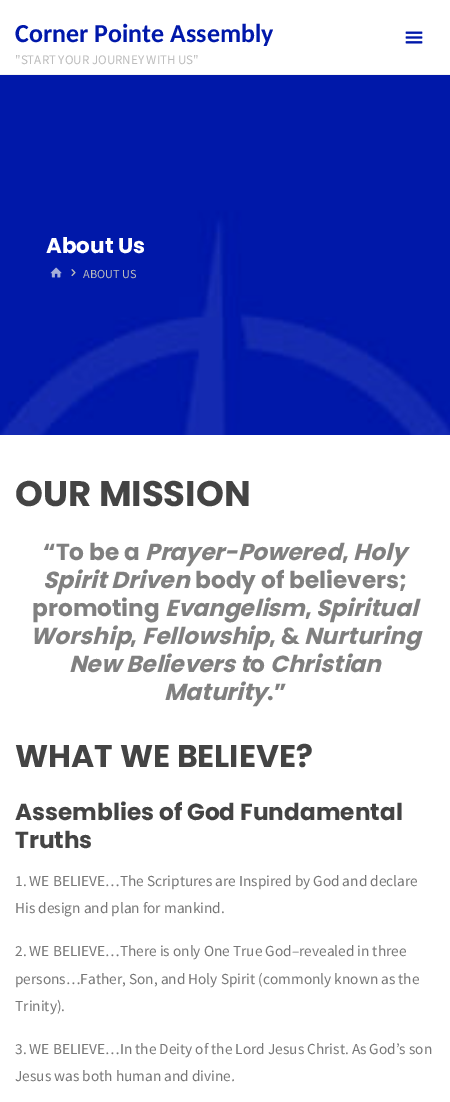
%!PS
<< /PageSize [450 1102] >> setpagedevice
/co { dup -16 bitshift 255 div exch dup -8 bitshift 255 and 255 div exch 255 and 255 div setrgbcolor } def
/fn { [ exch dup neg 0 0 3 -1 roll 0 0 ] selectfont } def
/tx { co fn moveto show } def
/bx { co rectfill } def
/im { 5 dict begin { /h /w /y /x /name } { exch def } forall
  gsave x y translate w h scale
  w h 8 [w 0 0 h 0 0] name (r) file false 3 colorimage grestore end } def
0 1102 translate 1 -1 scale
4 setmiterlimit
0 0 450 1102 16#FFFFFF bx
0 74 450 1 16#F2F2F2 bx
(media/1.raw) 405 31 18 13 im
(media/2.raw) 0 75 450 360 im
(media/3.raw) 50 267 12 11 im
(media/4.raw) 71 269 5 8 im
(Corner Pointe Assembly) 15 42 /Carlito-Bold 26 16#0018AA tx
("START YOUR JOURNEY WITH US") 15 64 /SourceSansPro-Regular 13 16#BCBCBC tx
(About Us) 46 253 /Poppins-Bold 21.5 16#FFFFFF tx
(ABOUT US) 83 278 /SourceSansPro-Regular 12.25 16#BCBCBC tx
(OUR MISSION) 15 506 /Poppins-Bold 35.5 16#444444 tx
(“To be a) 43 560 /Poppins-Bold 23.25 16#808080 tx
(Prayer-Powered) 145 560 /Poppins-BoldItalic 23.25 16#808080 tx
(Holy) 353 560 /Poppins-BoldItalic 23.25 16#808080 tx
(,) 342 560 /Poppins-Bold 23.25 16#808080 tx
(Spirit Driven) 43 588 /Poppins-BoldItalic 23.25 16#808080 tx
(body of believers;) 195 588 /Poppins-Bold 23.25 16#808080 tx
(promoting) 32 616 /Poppins-Bold 23.25 16#808080 tx
(Evangelism) 165 616 /Poppins-BoldItalic 23.25 16#808080 tx
(,) 305 616 /Poppins-Bold 23.25 16#808080 tx
(Spiritual) 316 616 /Poppins-BoldItalic 23.25 16#808080 tx
(Worship) 30 644 /Poppins-BoldItalic 23.25 16#808080 tx
(,) 130 644 /Poppins-Bold 23.25 16#808080 tx
(Fellowship) 142 644 /Poppins-BoldItalic 23.25 16#808080 tx
(, &) 269 644 /Poppins-Bold 23.25 16#808080 tx
(Nurturing) 304 644 /Poppins-BoldItalic 23.25 16#808080 tx
(New Believers t) 69 672 /Poppins-BoldItalic 23.25 16#808080 tx
(o) 250 672 /Poppins-Bold 23.25 16#808080 tx
(Christian) 270 672 /Poppins-BoldItalic 23.25 16#808080 tx
(Maturity) 164 700 /Poppins-BoldItalic 23.25 16#808080 tx
(.”) 267 700 /Poppins-Bold 23.25 16#808080 tx
(WHAT WE BELIEVE?) 15 767 /Poppins-Bold 31.5 16#444444 tx
(Assemblies of God Fundamental) 15 820 /Poppins-Bold 23.25 16#444444 tx
(Truths) 15 848 /Poppins-Bold 23.25 16#444444 tx
(1. WE BELIEVE…The Scriptures are Inspired by God and declare) 15 886 /SourceSansPro-Regular 15.3 16#777777 tx
(His design and plan for mankind.) 15 913 /SourceSansPro-Regular 15.3 16#777777 tx
(2. WE BELIEVE…There is only One True God–revealed in three) 15 956 /SourceSansPro-Regular 15.3 16#777777 tx
(persons…Father, Son, and Holy Spirit \(commonly known as the) 15 984 /SourceSansPro-Regular 15.3 16#777777 tx
(Trinity\).) 15 1011 /SourceSansPro-Regular 15.3 16#777777 tx
(3. WE BELIEVE…In the Deity of the Lord Jesus Christ. As God’s son) 15 1054 /SourceSansPro-Regular 15.3 16#777777 tx
(Jesus was both human and divine) 15 1081 /SourceSansPro-Regular 15.3 16#777777 tx
(.) 231 1081 /SourceSansPro-Italic 15.3 16#777777 tx
showpage
